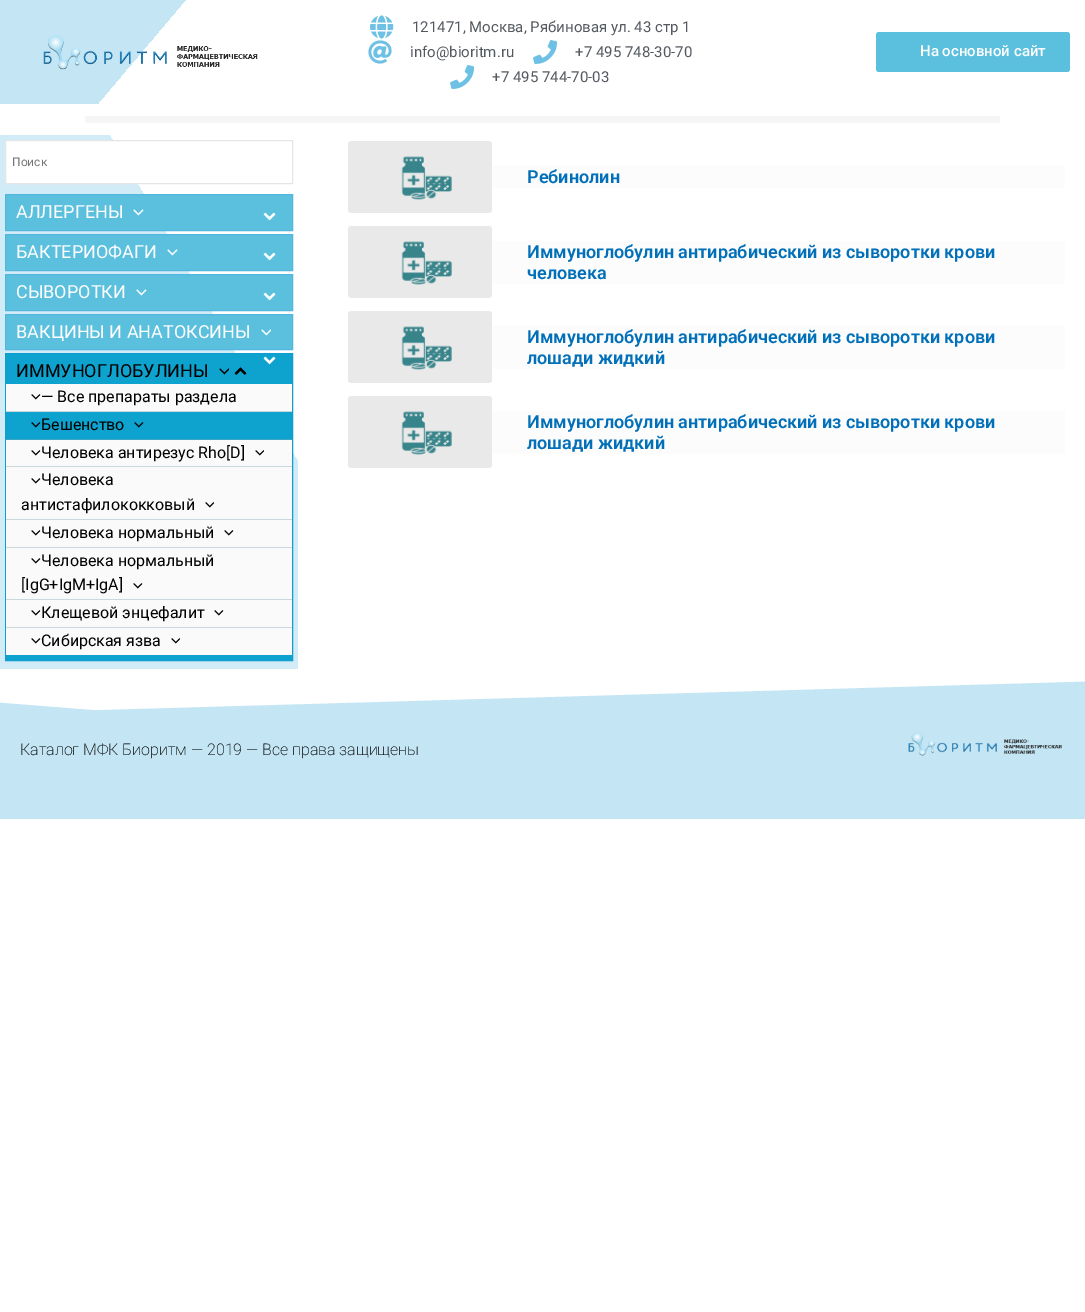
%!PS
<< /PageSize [1085 1312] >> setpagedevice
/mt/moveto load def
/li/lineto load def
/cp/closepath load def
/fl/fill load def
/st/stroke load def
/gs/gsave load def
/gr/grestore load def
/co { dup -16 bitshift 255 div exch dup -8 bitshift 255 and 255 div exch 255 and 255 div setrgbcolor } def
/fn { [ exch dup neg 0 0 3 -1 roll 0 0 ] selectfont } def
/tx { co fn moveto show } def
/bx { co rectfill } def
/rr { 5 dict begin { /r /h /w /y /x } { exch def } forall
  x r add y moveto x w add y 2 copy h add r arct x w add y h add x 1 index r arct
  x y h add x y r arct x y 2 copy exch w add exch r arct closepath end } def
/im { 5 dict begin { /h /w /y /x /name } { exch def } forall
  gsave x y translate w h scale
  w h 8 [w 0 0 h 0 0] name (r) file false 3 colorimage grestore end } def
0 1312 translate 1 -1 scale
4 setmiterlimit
0 0 1085 1312 16#FFFFFF bx
gs 0 0 mt 186 0 li 186 104 li 0 104 li cp clip newpath
<< /ShadingType 2 /ColorSpace /DeviceRGB /Coords [245 142 32 -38] /Extend [true true] /Function << /FunctionType 3 /Domain [0 1] /Functions [<< /FunctionType 2 /Domain [0 1] /C0 [1 1 1] /C1 [1 1 1] /N 1 >> << /FunctionType 2 /Domain [0 1] /C0 [.769 .902 .957] /C1 [.769 .902 .957] /N 1 >>] /Bounds [.49] /Encode [0 1 0 1] >> >> shfill gr
(media/1.raw) 43 35 215 35 im
(media/2.raw) 370 15 24 24 im
(media/3.raw) 368 40 24 24 im
(media/4.raw) 533 40 24 24 im
(media/4.raw) 450 65 24 24 im
16#5BC0DE co
876 32 194 40 3 rr fl
85 116 915 7 16#F6F6F6 bx
gs 0 135 mt 298 135 li 298 669 li 0 669 li cp clip newpath
<< /ShadingType 2 /ColorSpace /DeviceRGB /Coords [376 271 -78 533] /Extend [true true] /Function << /FunctionType 3 /Domain [0 1] /Functions [<< /FunctionType 2 /Domain [0 1] /C0 [1 1 1] /C1 [1 1 1] /N 1 >> << /FunctionType 2 /Domain [0 1] /C0 [.824 .925 .969] /C1 [.824 .925 .969] /N 1 >>] /Bounds [.31] /Encode [0 1 0 1] >> >> shfill gr
6 141 131 42 16#FFFFFF bx
16#E5E5E5 co
5.5 140.5 287 43 rectstroke
16#5BC0DE co
5.5 194.5 mt 292.5 194.5 li 292.5 230.5 li 5.5 230.5 li cp gs fl gr
16#52B6DE co
st
(media/5.raw) 133 209 11 7 im
(media/6.raw) 263 212 13 9 im
16#5BC0DE co
5.5 234.5 mt 292.5 234.5 li 292.5 270.5 li 5.5 270.5 li cp gs fl gr
16#52B6DE co
st
(media/5.raw) 167 249 11 7 im
(media/6.raw) 263 252 13 9 im
16#5BC0DE co
5.5 274.5 mt 292.5 274.5 li 292.5 310.5 li 5.5 310.5 li cp gs fl gr
16#52B6DE co
st
(media/5.raw) 136 289 11 7 im
(media/6.raw) 263 292 13 9 im
16#5BC0DE co
5.5 314.5 mt 292.5 314.5 li 292.5 349.5 li 5.5 349.5 li cp gs fl gr
16#52B6DE co
st
(media/7.raw) 261 329 10 7 im
16#0EA2CE co
5.5 353.5 mt 292.5 353.5 li 292.5 660.5 li 5.5 660.5 li cp gs fl gr
16#119DD0 co
st
(media/8.raw) 263 356 13 9 im
(media/9.raw) 219 368 10 7 im
(media/10.raw) 234 367 13 8 im
6 384 286 27 16#FAFAFA bx
6 411 286 1 16#C9D8DD bx
(media/11.raw) 31 394 10 6 im
6 439 286 1 16#3EA4C3 bx
(media/12.raw) 31 422 10 6 im
(media/12.raw) 134 422 10 6 im
6 440 286 26 16#FAFAFA bx
6 466 286 1 16#C9D8DD bx
(media/11.raw) 31 450 10 6 im
(media/13.raw) 255 450 9 6 im
6 467 286 52 16#FAFAFA bx
6 519 286 1 16#C9D8DD bx
(media/11.raw) 31 478 10 6 im
(media/13.raw) 205 502 9 6 im
6 520 286 27 16#FAFAFA bx
6 547 286 1 16#C9D8DD bx
(media/11.raw) 31 530 10 6 im
(media/11.raw) 224 530 10 6 im
6 548 286 51 16#FAFAFA bx
6 599 286 1 16#C9D8DD bx
(media/11.raw) 31 558 10 6 im
(media/11.raw) 133 583 10 6 im
6 600 286 27 16#FAFAFA bx
6 627 286 1 16#C9D8DD bx
(media/11.raw) 31 610 10 6 im
(media/11.raw) 214 610 10 6 im
6 628 286 27 16#FAFAFA bx
(media/11.raw) 31 638 10 6 im
(media/13.raw) 171 638 9 6 im
(media/14.raw) 348 141 144 72 im
16#FCFCFC co
492 166 573 22 2 rr fl
(media/14.raw) 348 226 144 72 im
492 241 573 43 2 rr fl
(media/14.raw) 348 311 144 72 im
492 326 573 43 2 rr fl
(media/14.raw) 348 396 144 72 im
492 411 573 43 2 rr fl
0 681 1085 138 16#C4E6F4 bx
gs
0 669 1085 41 rectclip
16#FFFFFF co
95 710 mt -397 671 li -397 668 li 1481 668 li 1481 670 li cp fl
gr
(media/15.raw) 908 732 154 24 im
(121471, Москва, Рябиновая ул. 43 стр 1) 412 32 /Roboto-Regular 15 16#54595F tx
(info@bioritm.ru) 410 57 /Roboto-Regular 15 16#54595F tx
(+7 495 748-30-70) 575 57 /Roboto-Regular 15 16#54595F tx
(+7 495 744-70-03) 492 82 /Roboto-Regular 15 16#54595F tx
(На основной сайт) 920 56 /Roboto-Medium 15 16#FFFFFF tx
(Поиск) 12 166 /Roboto-Regular 12 16#757575 tx
(АЛЛЕРГЕНЫ) 16 218 /Roboto-Regular 18 16#FFFFFF tx
(БАКТЕРИОФАГИ) 16 258 /Roboto-Regular 18 16#FFFFFF tx
(СЫВОРОТКИ) 16 298 /Roboto-Regular 18 16#FFFFFF tx
(ВАКЦИНЫ И АНАТОКСИНЫ) 16 338 /Roboto-Regular 18 16#FFFFFF tx
(ИММУНОГЛОБУЛИНЫ) 16 377 /Roboto-Regular 18 16#000000 tx
(— Все препараты раздела) 41 402 /Roboto-Regular 16 16#000000 tx
(Бешенство) 41 430 /Roboto-Regular 16 16#000000 tx
(Человека антирезус Rho[D]) 41 458 /Roboto-Regular 16 16#000000 tx
(Человека) 41 485 /Roboto-Regular 16 16#000000 tx
(антистафилококковый) 21 510 /Roboto-Regular 16 16#000000 tx
(Человека нормальный) 41 538 /Roboto-Regular 16 16#000000 tx
(Человека нормальный) 41 566 /Roboto-Regular 16 16#000000 tx
([IgG+IgM+IgA]) 21 590 /Roboto-Regular 16 16#000000 tx
(Клещевой энцефалит) 41 618 /Roboto-Regular 16 16#000000 tx
(Сибирская язва) 41 646 /Roboto-Regular 16 16#000000 tx
(Ребинолин) 527 183 /Roboto-SemiBold 18 16#0170B9 tx
(Иммуноглобулин антирабический из сыворотки крови) 527 258 /Roboto-SemiBold 18 16#0170B9 tx
(человека) 527 279 /Roboto-SemiBold 18 16#0170B9 tx
(Иммуноглобулин антирабический из сыворотки крови) 527 343 /Roboto-SemiBold 18 16#0170B9 tx
(лошади жидкий) 527 364 /Roboto-SemiBold 18 16#0170B9 tx
(Иммуноглобулин антирабический из сыворотки крови) 527 428 /Roboto-SemiBold 18 16#0170B9 tx
(лошади жидкий) 527 449 /Roboto-SemiBold 18 16#0170B9 tx
(Каталог МФК Биоритм — 2019 — Все права защищены) 20 755 /Roboto-ExtraLight 16 16#000000 tx
showpage
